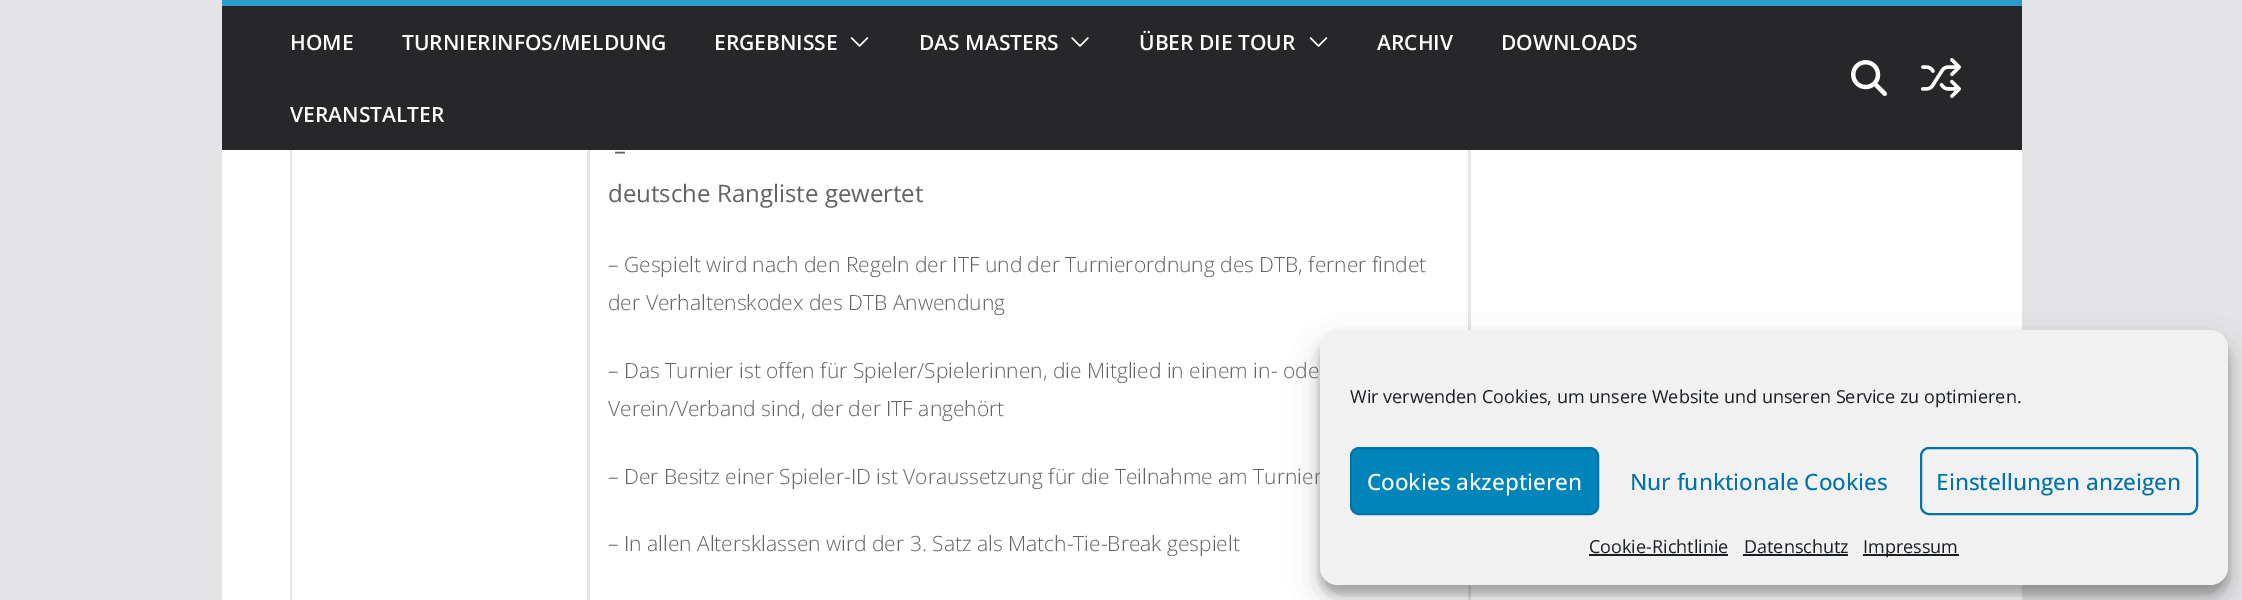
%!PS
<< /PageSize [2242 600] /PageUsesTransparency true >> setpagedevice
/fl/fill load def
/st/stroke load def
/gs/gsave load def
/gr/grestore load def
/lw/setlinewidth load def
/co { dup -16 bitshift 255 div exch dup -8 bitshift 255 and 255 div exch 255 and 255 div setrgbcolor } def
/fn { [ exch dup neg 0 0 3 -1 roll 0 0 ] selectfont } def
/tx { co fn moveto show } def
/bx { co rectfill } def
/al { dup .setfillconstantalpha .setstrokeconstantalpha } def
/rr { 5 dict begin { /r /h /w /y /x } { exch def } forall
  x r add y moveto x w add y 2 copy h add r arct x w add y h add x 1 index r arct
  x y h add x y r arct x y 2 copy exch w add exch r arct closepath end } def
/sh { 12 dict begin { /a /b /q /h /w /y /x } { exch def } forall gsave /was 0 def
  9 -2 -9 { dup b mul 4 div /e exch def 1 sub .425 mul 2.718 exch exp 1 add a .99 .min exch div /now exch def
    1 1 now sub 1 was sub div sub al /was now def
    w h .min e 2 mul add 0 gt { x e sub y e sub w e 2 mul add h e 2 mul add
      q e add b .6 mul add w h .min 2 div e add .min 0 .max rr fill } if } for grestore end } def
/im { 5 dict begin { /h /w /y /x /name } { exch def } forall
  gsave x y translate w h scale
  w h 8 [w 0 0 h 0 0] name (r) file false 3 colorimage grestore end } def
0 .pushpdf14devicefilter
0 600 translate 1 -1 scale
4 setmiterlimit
0 0 2242 600 16#E4E4E7 bx
222 150 1800 450 16#FFFFFF bx
16#E6E6E6 co
2 lw
291 -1 1178 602 rectstroke
222 6 1800 144 16#27272A bx
222 0 1800 6 16#289DCC bx
(media/1.raw) 850 37 19 10 im
(media/2.raw) 1071 37 18 10 im
(media/1.raw) 1309 37 19 10 im
(media/3.raw) 1851 60 36 36 im
(media/4.raw) 1921 58 40 40 im
587 150 3 450 16#E4E4E7 bx
1470 150 1 450 16#E4E4E7 bx
16#000000 co
1320 339 908 255 18 4.5 .23 sh
1320 345 908 255 18 15 .19 sh
(HOME) 290 50 /OpenSans-SemiBold 21 16#FFFFFF tx
(TURNIERINFOS/MELDUNG) 402 50 /OpenSans-SemiBold 21 16#FFFFFF tx
(ERGEBNISSE) 714 50 /OpenSans-SemiBold 21 16#FFFFFF tx
(DAS MASTERS) 919 50 /OpenSans-SemiBold 21 16#FFFFFF tx
(ÜBER DIE TOUR) 1139 50 /OpenSans-SemiBold 21 16#FFFFFF tx
(ARCHIV) 1377 50 /OpenSans-SemiBold 21 16#FFFFFF tx
(DOWNLOADS) 1501 50 /OpenSans-SemiBold 21 16#FFFFFF tx
(VERANSTALTER) 290 122 /OpenSans-SemiBold 21 16#FFFFFF tx
(–) 614 159 /OpenSans-Regular 24 16#626262 tx
(deutsche Rangliste gewertet) 608 202 /OpenSans-Regular 24 16#626262 tx
(– Gespielt wird nach den Regeln der ITF und der Turnierordnung des DTB, ferner findet) 608 272 /OpenSans-Light 21 16#626262 tx
(der Verhaltenskodex des DTB Anwendung) 608 310 /OpenSans-Light 21 16#626262 tx
(– Das Turnier ist offen für Spieler/Spielerinnen, die Mitglied in einem in- ode) 608 378 /OpenSans-Light 21 16#626262 tx
(Verein/Verband sind, der der ITF angehört) 608 416 /OpenSans-Light 21 16#626262 tx
(– Der Besitz einer Spieler-ID ist Voraussetzung für die Teilnahme am Turnier) 608 484 /OpenSans-Light 21 16#626262 tx
(– In allen Altersklassen wird der 3. Satz als Match-Tie-Break gespielt) 608 551 /OpenSans-Light 21 16#626262 tx
16#F1F1F1 co
1320 330 908 255 18 rr fl
(Wir verwenden Cookies, um unsere Website und unseren Service zu optimieren.) 1350 403 /OpenSans-Regular 18 16#191E23 tx
16#0085BA co
1351 448 247 66 8 rr gs fl gr
16#0073AA co
st
(Cookies akzeptieren) 1367 490 /OpenSans-Medium 22.5 16#FFFFFF tx
(Nur funktionale Cookies) 1630 490 /OpenSans-Medium 22.5 16#0073AA tx
1921 448 276 66 8 rr st
(Einstellungen anzeigen) 1936 490 /OpenSans-Medium 22.5 16#0073AA tx
(Cookie-Richtlinie) 1589 553 /OpenSans-Regular 18 16#191E23 tx
1589 554 139 2 16#191E23 bx
(Datenschutz) 1744 553 /OpenSans-Regular 18 16#191E23 tx
1743 554 105 2 16#191E23 bx
1863 554 96 2 16#191E23 bx
(Impressum) 1863 553 /OpenSans-Regular 18 16#191E23 tx
.poppdf14devicefilter showpage
